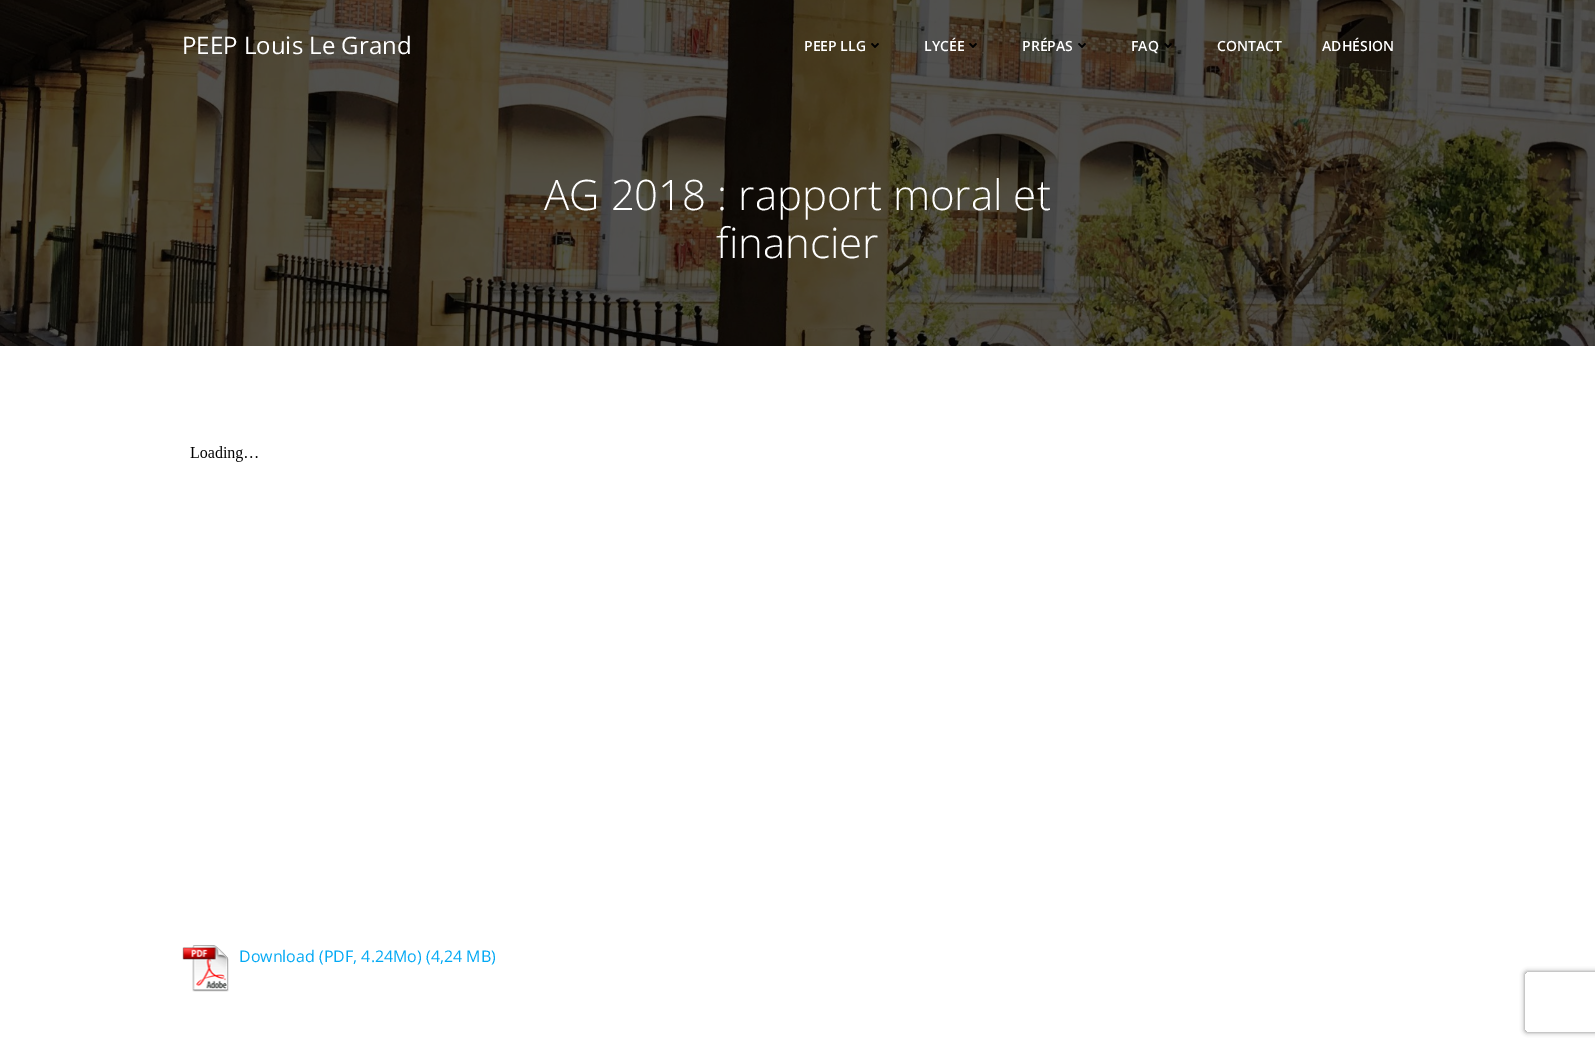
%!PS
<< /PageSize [1595 1046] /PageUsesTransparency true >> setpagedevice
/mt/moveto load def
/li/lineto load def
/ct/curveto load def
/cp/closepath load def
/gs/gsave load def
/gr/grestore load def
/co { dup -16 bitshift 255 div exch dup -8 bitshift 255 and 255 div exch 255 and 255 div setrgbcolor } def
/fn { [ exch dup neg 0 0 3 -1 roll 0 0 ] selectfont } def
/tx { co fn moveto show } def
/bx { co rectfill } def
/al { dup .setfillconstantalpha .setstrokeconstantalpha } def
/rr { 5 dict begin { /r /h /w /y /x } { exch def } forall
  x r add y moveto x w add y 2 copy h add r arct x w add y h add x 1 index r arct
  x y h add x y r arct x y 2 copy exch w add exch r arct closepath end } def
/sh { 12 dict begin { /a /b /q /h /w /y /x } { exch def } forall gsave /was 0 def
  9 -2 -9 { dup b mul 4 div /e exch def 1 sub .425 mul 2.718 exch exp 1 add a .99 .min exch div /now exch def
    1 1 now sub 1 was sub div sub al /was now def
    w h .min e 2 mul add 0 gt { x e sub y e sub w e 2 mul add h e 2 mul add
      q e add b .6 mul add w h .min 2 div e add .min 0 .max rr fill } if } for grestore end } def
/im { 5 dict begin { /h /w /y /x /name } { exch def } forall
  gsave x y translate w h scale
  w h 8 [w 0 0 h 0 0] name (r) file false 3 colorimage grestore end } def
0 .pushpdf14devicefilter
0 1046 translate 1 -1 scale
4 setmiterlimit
0 0 1595 1046 16#FFFFFF bx
(media/5.raw) 0 0 1595 346 im
(media/1.raw) 871 43 8 5 im
(media/2.raw) 969 43 8 5 im
(media/3.raw) 1078 43 8 5 im
(media/4.raw) 1164 43 8 5 im
(media/6.raw) 190 446 68 16 im
(media/7.raw) 182 945 47 47 im
gs
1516 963 mt 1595 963 li 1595 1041 li 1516 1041 li cp 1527 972 mt 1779 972 li 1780 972 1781 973 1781 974 ct 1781 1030 li 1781 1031 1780 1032 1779 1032 ct 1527 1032 li 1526 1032 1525 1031 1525 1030 ct 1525 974 li 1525 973 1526 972 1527 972 ct cp eoclip newpath
16#808080 co
1525 972 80 60 2 2.5 1 sh
gr
(PEEP Louis Le Grand) 182 54 /OpenSans-Regular 24 16#FFFFFF tx
(PEEP LLG) 804 51 /OpenSans-SemiBold 14 16#FFFFFF tx
(LYCÉE) 924 51 /OpenSans-SemiBold 14 16#FFFFFF tx
(PRÉPAS) 1022 51 /OpenSans-SemiBold 14 16#FFFFFF tx
(FAQ) 1131 51 /OpenSans-SemiBold 14 16#FFFFFF tx
(CONTACT) 1217 51 /OpenSans-SemiBold 14 16#FFFFFF tx
(ADHÉSION) 1322 51 /OpenSans-SemiBold 14 16#FFFFFF tx
(AG 2018 : rapport moral et) 544 210 /OpenSans-Light 42 16#FFFFFF tx
(financier) 716 258 /OpenSans-Light 42 16#FFFFFF tx
(Download \(PDF, 4.24Mo\) \(4,24 MB\)) 239 962 /OpenSans-Regular 16 16#03A9F4 tx
.poppdf14devicefilter showpage
